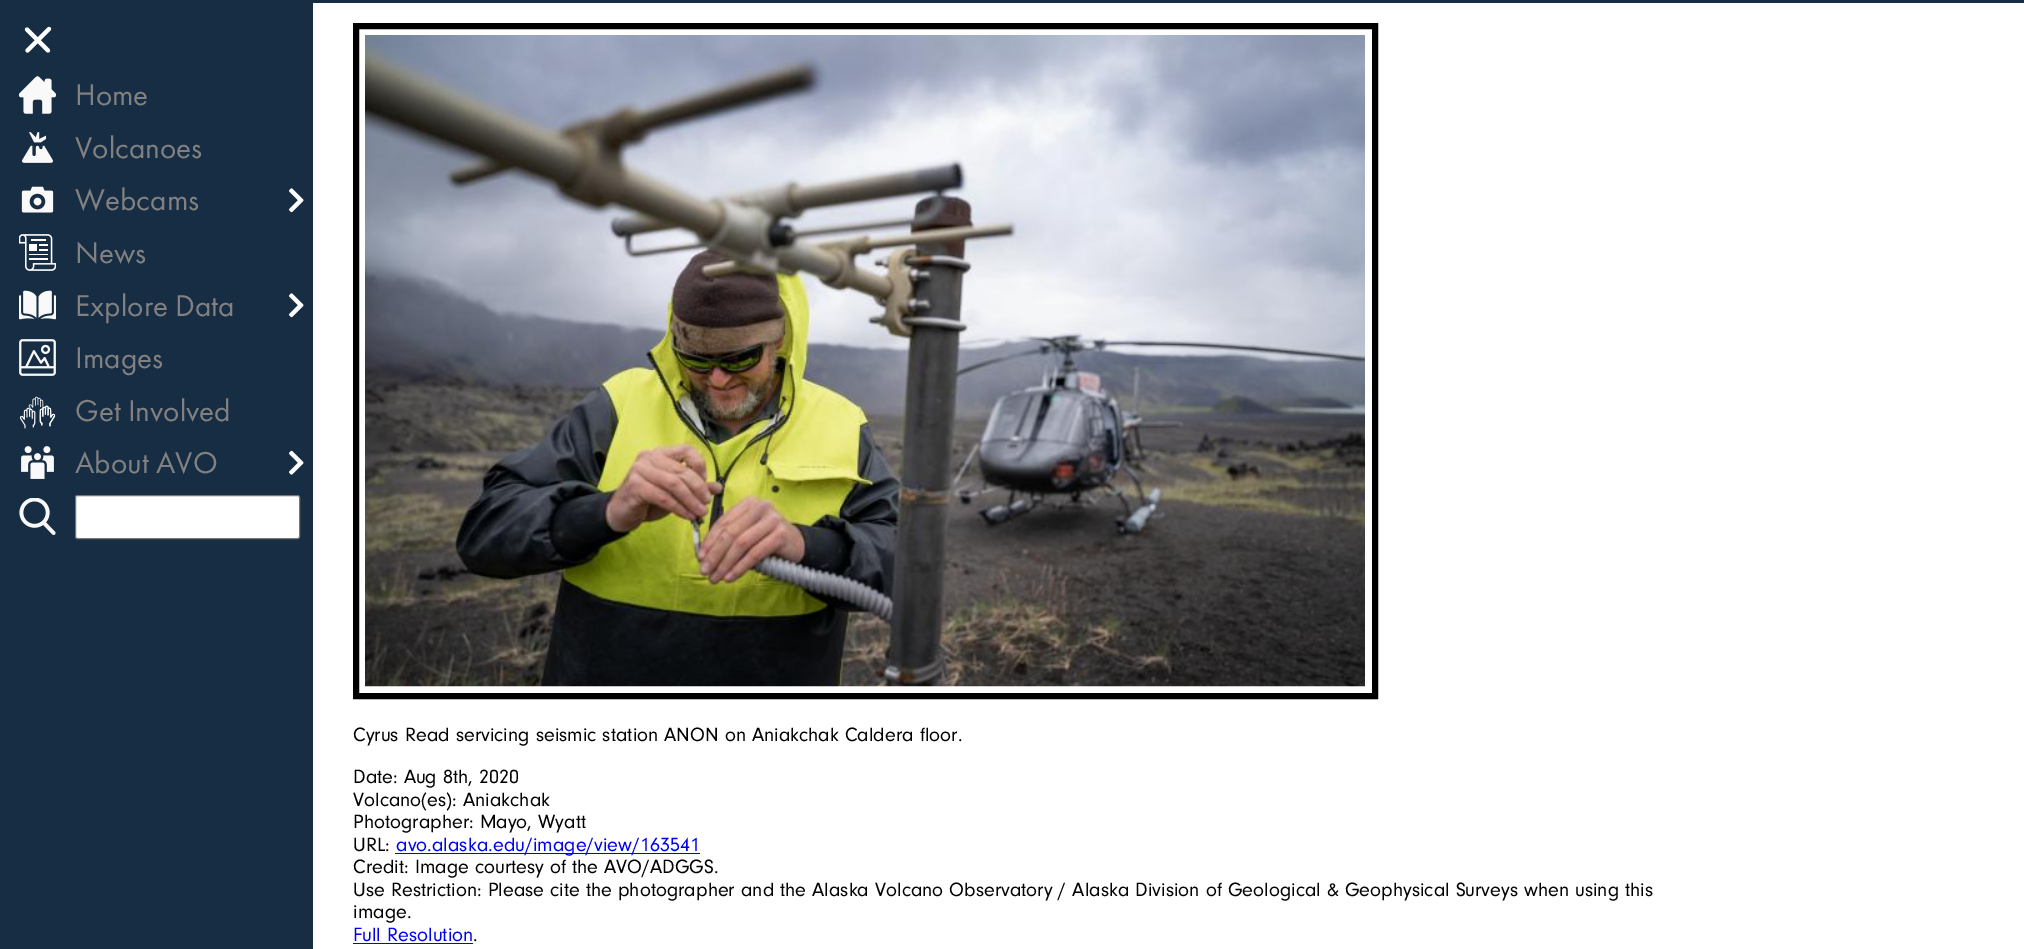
%!PS
<< /PageSize [2024 949] >> setpagedevice
/mt/moveto load def
/li/lineto load def
/fl/fill load def
/st/stroke load def
/gs/gsave load def
/gr/grestore load def
/lw/setlinewidth load def
/co { dup -16 bitshift 255 div exch dup -8 bitshift 255 and 255 div exch 255 and 255 div setrgbcolor } def
/fn { [ exch dup neg 0 0 3 -1 roll 0 0 ] selectfont } def
/tx { co fn moveto show } def
/bx { co rectfill } def
/rr { 5 dict begin { /r /h /w /y /x } { exch def } forall
  x r add y moveto x w add y 2 copy h add r arct x w add y h add x 1 index r arct
  x y h add x y r arct x y 2 copy exch w add exch r arct closepath end } def
/im { 5 dict begin { /h /w /y /x /name } { exch def } forall
  gsave x y translate w h scale
  w h 8 [w 0 0 h 0 0] name (r) file false 3 colorimage grestore end } def
0 949 translate 1 -1 scale
4 setmiterlimit
0 0 2024 949 16#FFFFFF bx
0 0 2024 3 16#172D43 bx
0 3 313 946 16#172D43 bx
16#FFFFFF co
4.1 lw
1 setlinecap
48.5 29.5 mt 27.5 50.5 li 27 29.5 mt 48 50.5 li 49 29 mt 28 50 li st
(media/1.raw) 19 76 37 38 im
(media/2.raw) 22 132 31 31 im
(media/3.raw) 21 186 33 27 im
(media/4.raw) 289 188 15 25 im
(media/5.raw) 19 234 37 37 im
(media/6.raw) 19 290 37 30 im
(media/4.raw) 289 293 15 25 im
(media/7.raw) 19 339 37 37 im
(media/8.raw) 19 396 37 33 im
(media/9.raw) 21 446 33 33 im
(media/10.raw) 289 450 15 25 im
(media/11.raw) 19 498 37 37 im
75.5 495.5 224 43 2 rr gs fl gr
16#767676 co
1 lw
0 setlinecap
st
16#000000 co
6 lw
356 26 1019 670 rectstroke
(media/12.raw) 365 35 1000 652 im
395 853 305 1 16#0000EE bx
353 943 120 1 16#0000EE bx
(Home) 75 105 /FuturaPT-Regular 31.25 16#818181 tx
(Volcanoes) 75 158 /FuturaPT-Regular 31.25 16#818181 tx
(Webcams) 75 210 /FuturaPT-Regular 31.25 16#818181 tx
(News) 75 263 /FuturaPT-Regular 31.25 16#818181 tx
(Explore Data) 75 316 /FuturaPT-Regular 31.25 16#818181 tx
(Images) 75 368 /FuturaPT-Regular 31.25 16#818181 tx
(Get Involved) 75 421 /FuturaPT-Regular 31.25 16#818181 tx
(About AVO) 75 473 /FuturaPT-Regular 31.25 16#818181 tx
(Cyrus Read servicing seismic station ANON on Aniakchak Caldera floor.) 353 741 /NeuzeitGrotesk-Regular 20 16#000000 tx
(Date: Aug 8th, 2020) 353 783 /NeuzeitGrotesk-Regular 20 16#000000 tx
(Volcano\(es\): Aniakchak) 353 806 /NeuzeitGrotesk-Regular 20 16#000000 tx
(Photographer: Mayo, Wyatt) 353 828 /NeuzeitGrotesk-Regular 20 16#000000 tx
(URL:) 353 851 /NeuzeitGrotesk-Regular 20 16#000000 tx
(avo.alaska.edu/image/view/163541) 396 851 /NeuzeitGrotesk-Regular 20 16#0000EE tx
(Credit: Image courtesy of the AVO/ADGGS.) 353 873 /NeuzeitGrotesk-Regular 20 16#000000 tx
(Use Restriction: Please cite the photographer and the Alaska Volcano Observatory / Alaska Division of Geological & Geophysical Surveys when using this) 353 896 /NeuzeitGrotesk-Regular 20 16#000000 tx
(image.) 353 918 /NeuzeitGrotesk-Regular 20 16#000000 tx
(Full Resolution) 353 941 /NeuzeitGrotesk-Regular 20 16#0000EE tx
(.) 473 941 /NeuzeitGrotesk-Regular 20 16#000000 tx
showpage
